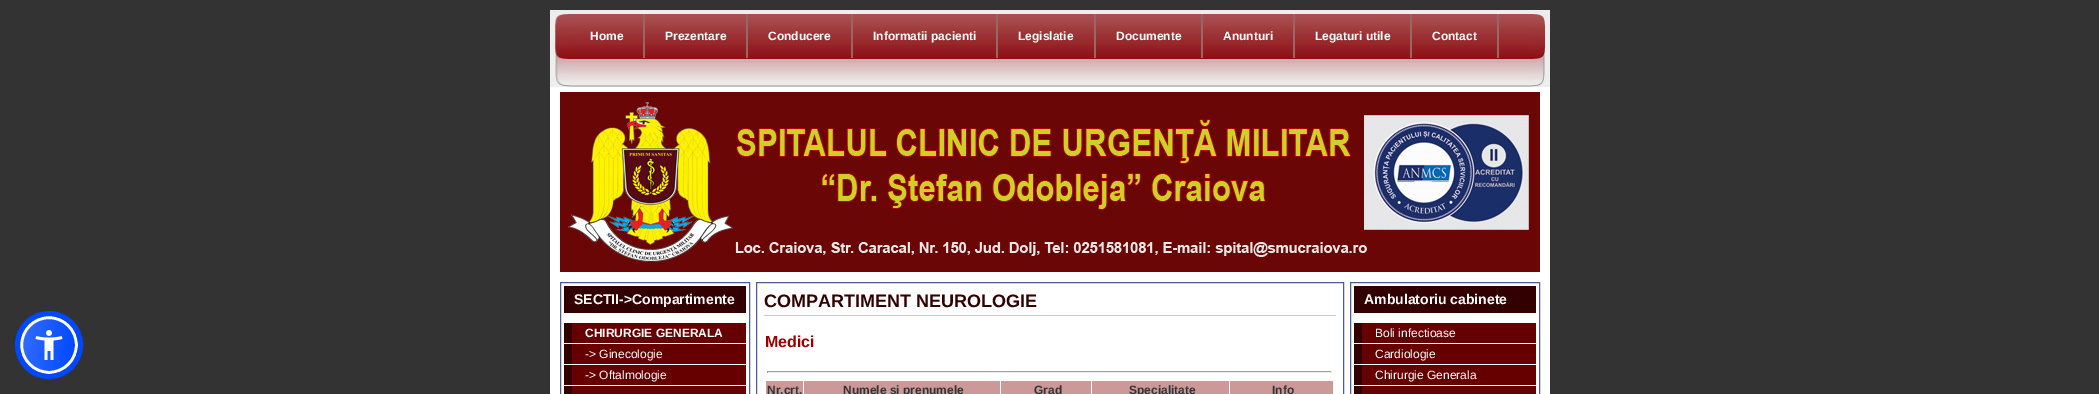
%!PS
<< /PageSize [2099 394] /PageUsesTransparency true >> setpagedevice
/mt/moveto load def
/li/lineto load def
/cp/closepath load def
/st/stroke load def
/gs/gsave load def
/gr/grestore load def
/lw/setlinewidth load def
/co { dup -16 bitshift 255 div exch dup -8 bitshift 255 and 255 div exch 255 and 255 div setrgbcolor } def
/fn { [ exch dup neg 0 0 3 -1 roll 0 0 ] selectfont } def
/tx { co fn moveto show } def
/bx { co rectfill } def
/al { dup .setfillconstantalpha .setstrokeconstantalpha } def
/ci { newpath 0 360 arc closepath } def
/rr { 5 dict begin { /r /h /w /y /x } { exch def } forall
  x r add y moveto x w add y 2 copy h add r arct x w add y h add x 1 index r arct
  x y h add x y r arct x y 2 copy exch w add exch r arct closepath end } def
/sh { 12 dict begin { /a /b /q /h /w /y /x } { exch def } forall gsave /was 0 def
  9 -2 -9 { dup b mul 4 div /e exch def 1 sub .425 mul 2.718 exch exp 1 add a .99 .min exch div /now exch def
    1 1 now sub 1 was sub div sub al /was now def
    w h .min e 2 mul add 0 gt { x e sub y e sub w e 2 mul add h e 2 mul add
      q e add b .6 mul add w h .min 2 div e add .min 0 .max rr fill } if } for grestore end } def
/im { 5 dict begin { /h /w /y /x /name } { exch def } forall
  gsave x y translate w h scale
  w h 8 [w 0 0 h 0 0] name (r) file false 3 colorimage grestore end } def
0 .pushpdf14devicefilter
0 394 translate 1 -1 scale
4 setmiterlimit
0 0 2099 394 16#333333 bx
16#5D6494 co
20 318 58 58 29 2 .2 sh
gs
20 316 58 58 29 rr clip newpath
gs 23 319 mt 75 319 li 75 371 li 23 371 li cp clip newpath
<< /ShadingType 2 /ColorSpace /DeviceRGB /Coords [21 342 77 348] /Extend [true true] /Function << /FunctionType 2 /Domain [0 1] /C0 [.196 .424 1] /C1 [0 .282 1] /N 1 >> >> shfill gr
gr
16#FFFFFF co
3 lw
49 345 27.5 ci st
16#0048FF co
5 lw
49 345 31.5 ci st
(media/1.raw) 35 330 28 30 im
(media/2.raw) 550 10 20 77 im
(media/3.raw) 1530 10 20 77 im
(media/4.raw) 570 10 960 77 im
643 14 2 44 16#996666 bx
746 14 2 44 16#996666 bx
851 14 2 44 16#996666 bx
996 14 2 44 16#996666 bx
1094 14 2 44 16#996666 bx
1201 14 2 44 16#996666 bx
1293 14 2 44 16#996666 bx
1410 14 2 44 16#996666 bx
1497 14 2 44 16#996666 bx
550 87 1000 307 16#FFFFFF bx
(media/5.raw) 560 92 980 180 im
16#4F5B91 co
1 lw
560.5 282.5 189 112 rectstroke
564 286 182 27 16#330000 bx
572 323 174 20 16#660000 bx
564 323 8 20 16#330000 bx
572 344 174 20 16#660000 bx
564 344 8 20 16#330000 bx
572 365 174 20 16#660000 bx
564 365 8 20 16#330000 bx
564 386 182 8 16#660000 bx
564 386 8 8 16#330000 bx
16#4F5B91 co
756.5 282.5 587 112 rectstroke
764 315 572 1 16#CCCCCC bx
767 371 565 1 16#9F9F9F bx
1331 371 1 2 16#EEEEEE bx
767 372 565 1 16#EEEEEE bx
767 371 1 2 16#9F9F9F bx
766 381 37 13 16#CC9999 bx
804 381 196 13 16#CC9999 bx
1001 381 90 13 16#CC9999 bx
1092 381 137 13 16#CC9999 bx
1230 381 103 13 16#CC9999 bx
16#4F5B91 co
1350.5 282.5 189 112 rectstroke
1354 286 182 27 16#330000 bx
1362 323 174 20 16#660000 bx
1354 323 8 20 16#330000 bx
1362 344 174 20 16#660000 bx
1354 344 8 20 16#330000 bx
1362 365 174 20 16#660000 bx
1354 365 8 20 16#330000 bx
1354 386 182 8 16#660000 bx
1354 386 8 8 16#330000 bx
(Home) 590 40 /LiberationSans-Bold 12 16#FFFFFF tx
(Prezentare) 665 40 /LiberationSans-Bold 12 16#FFFFFF tx
(Conducere) 768 40 /LiberationSans-Bold 12 16#FFFFFF tx
(Informatii pacienti) 873 40 /LiberationSans-Bold 12 16#FFFFFF tx
(Legislatie) 1018 40 /LiberationSans-Bold 12 16#FFFFFF tx
(Documente) 1116 40 /LiberationSans-Bold 12 16#FFFFFF tx
(Anunturi) 1223 40 /LiberationSans-Bold 12 16#FFFFFF tx
(Legaturi utile) 1315 40 /LiberationSans-Bold 12 16#FFFFFF tx
(Contact) 1432 40 /LiberationSans-Bold 12 16#FFFFFF tx
(SECTII->Compartimente) 574 304 /LiberationSans-Bold 14 16#FFFFFF tx
(CHIRURGIE GENERALA) 585 337 /LiberationSans-Bold 12 16#FFFFFF tx
(-> Ginecologie) 585 358 /LiberationSans-Regular 12 16#FFFFFF tx
(-> Oftalmologie) 585 379 /LiberationSans-Regular 12 16#FFFFFF tx
(COMPARTIMENT NEUROLOGIE) 764 307 /LiberationSans-Bold 18 16#330000 tx
(Medici) 765 347 /LiberationSans-Bold 16 16#990000 tx
(Nr.crt.) 767 394 /LiberationSans-Bold 12 16#333333 tx
(Numele si prenumele) 843 394 /LiberationSans-Bold 12 16#333333 tx
(Grad) 1034 394 /LiberationSans-Bold 12 16#333333 tx
(Specialitate) 1129 394 /LiberationSans-Bold 12 16#333333 tx
(Info) 1272 394 /LiberationSans-Bold 12 16#333333 tx
(Ambulatoriu cabinete) 1364 304 /LiberationSans-Bold 14 16#FFFFFF tx
(Boli infectioase) 1375 337 /LiberationSans-Regular 12 16#FFFFFF tx
(Cardiologie) 1375 358 /LiberationSans-Regular 12 16#FFFFFF tx
(Chirurgie Generala) 1375 379 /LiberationSans-Regular 12 16#FFFFFF tx
.poppdf14devicefilter showpage
